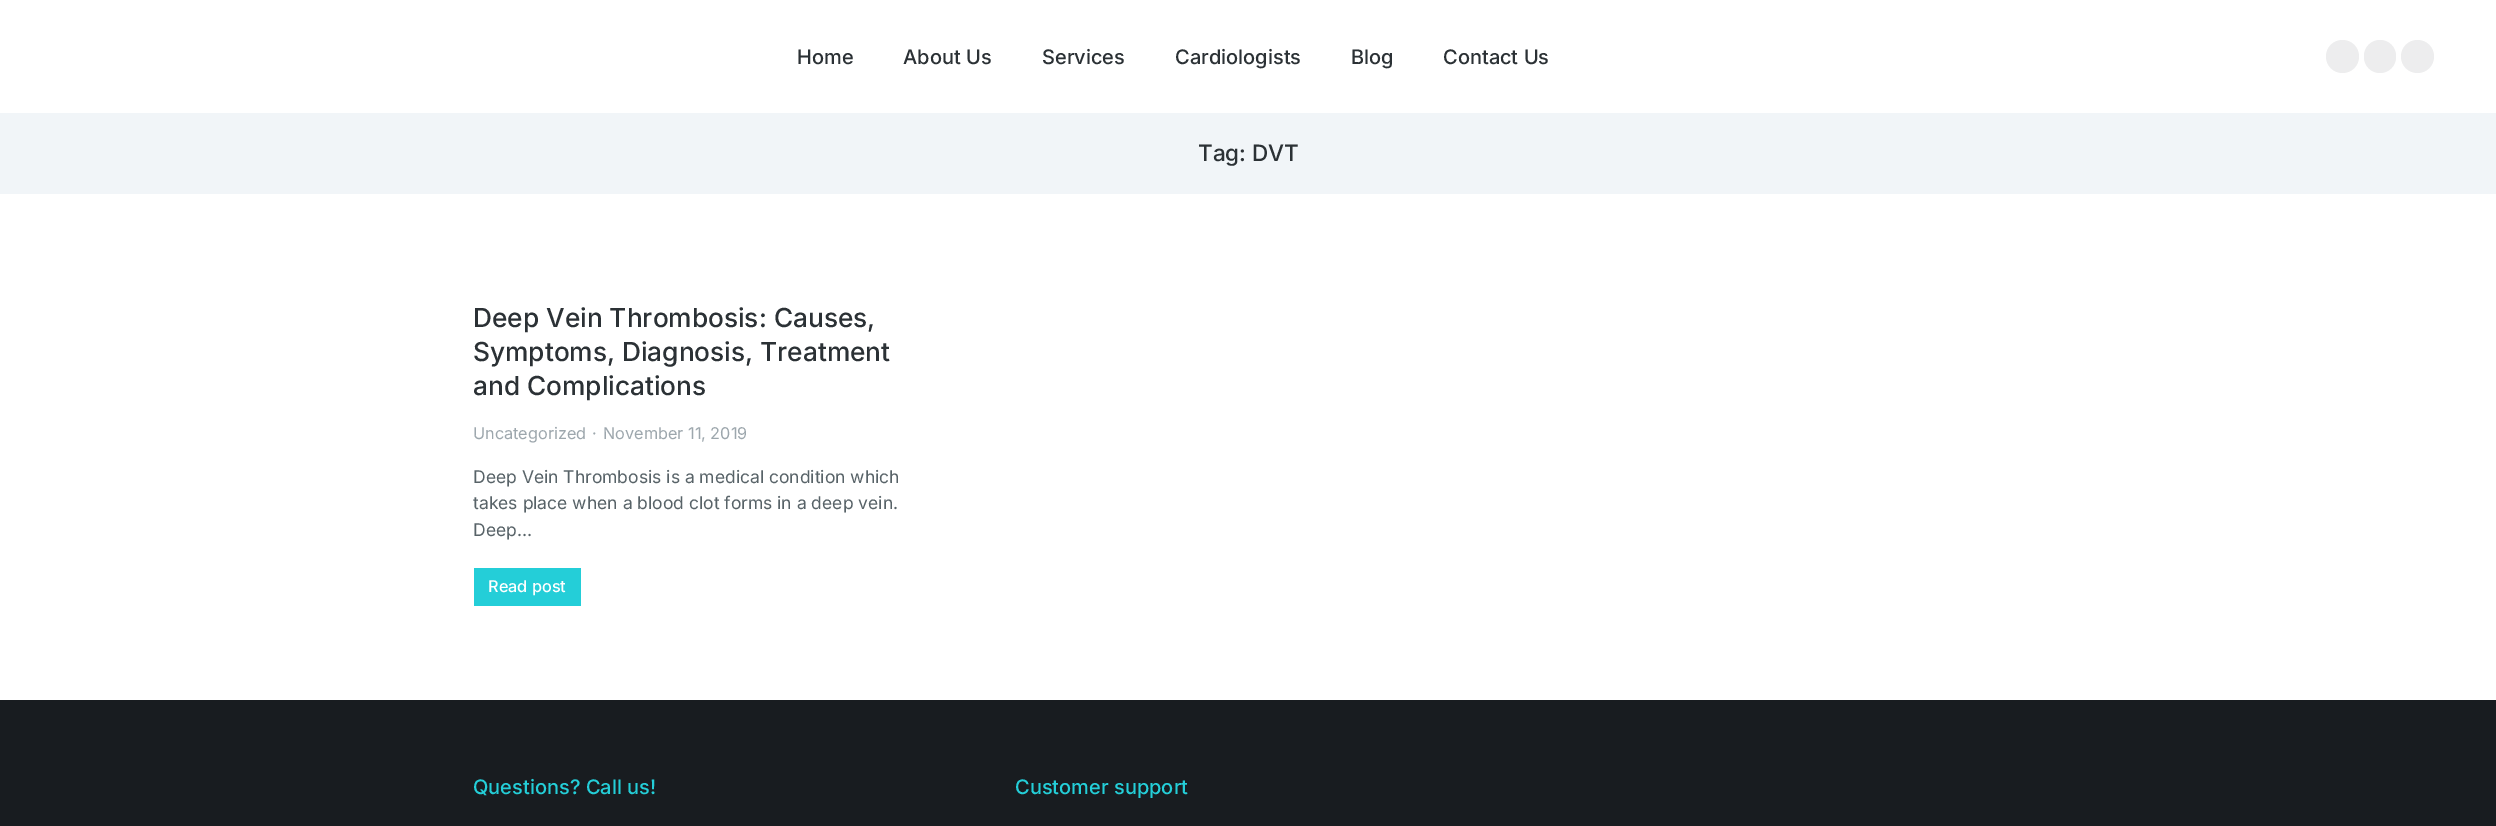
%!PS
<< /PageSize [2496 826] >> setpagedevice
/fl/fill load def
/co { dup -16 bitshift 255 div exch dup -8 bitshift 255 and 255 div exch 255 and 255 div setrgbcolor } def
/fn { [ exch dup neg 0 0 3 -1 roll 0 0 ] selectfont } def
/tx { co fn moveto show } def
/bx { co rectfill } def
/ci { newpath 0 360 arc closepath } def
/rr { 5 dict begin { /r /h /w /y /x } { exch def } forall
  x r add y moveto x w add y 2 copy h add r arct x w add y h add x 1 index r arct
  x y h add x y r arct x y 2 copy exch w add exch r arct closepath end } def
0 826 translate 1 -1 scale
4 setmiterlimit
0 0 2496 826 16#FFFFFF bx
16#EDEDEE co
2342.5 56.5 16.5 ci fl
2364 40 32 33 16 rr fl
2417.5 56.5 16.5 ci fl
0 113 2496 81 16#F1F5F8 bx
474 568 107 38 16#24CED8 bx
0 700 2496 126 16#181C20 bx
(Home) 797 64 /Inter-Medium 20 16#2B3135 tx
(About Us) 903 64 /Inter-Medium 20 16#2B3135 tx
(Services) 1042 64 /Inter-Medium 20 16#2B3135 tx
(Cardiologists) 1175 64 /Inter-Medium 20 16#2B3135 tx
(Blog) 1351 64 /Inter-Medium 20 16#2B3135 tx
(Contact Us) 1443 64 /Inter-Medium 20 16#2B3135 tx
(Tag: DVT) 1198 161 /Inter-Medium 22.5 16#2B3135 tx
(Deep Vein Thrombosis: Causes,) 473 327 /Inter-Medium 26.25 16#2B3135 tx
(Symptoms, Diagnosis, Treatment) 473 361 /Inter-Medium 26.25 16#2B3135 tx
(and Complications) 473 395 /Inter-Medium 26.25 16#2B3135 tx
(Uncategorized) 473 439 /Inter-Regular 16.25 16#9DA7AD tx
(·) 592 439 /Inter-Regular 16.25 16#9DA7AD tx
(November 11, 2019) 603 439 /Inter-Regular 16.25 16#9DA7AD tx
(Deep Vein Thrombosis is a medical condition which) 473 483 /Inter-Regular 17.5 16#586368 tx
(takes place when a blood clot forms in a deep vein.) 473 509 /Inter-Regular 17.5 16#586368 tx
(Deep…) 473 536 /Inter-Regular 17.5 16#586368 tx
(Read post) 488 592 /Inter-Medium 16.25 16#FFFFFF tx
(Questions? Call us!) 473 794 /Inter-Medium 20 16#24CED8 tx
(Customer support) 1015 794 /Inter-Medium 20 16#24CED8 tx
showpage
